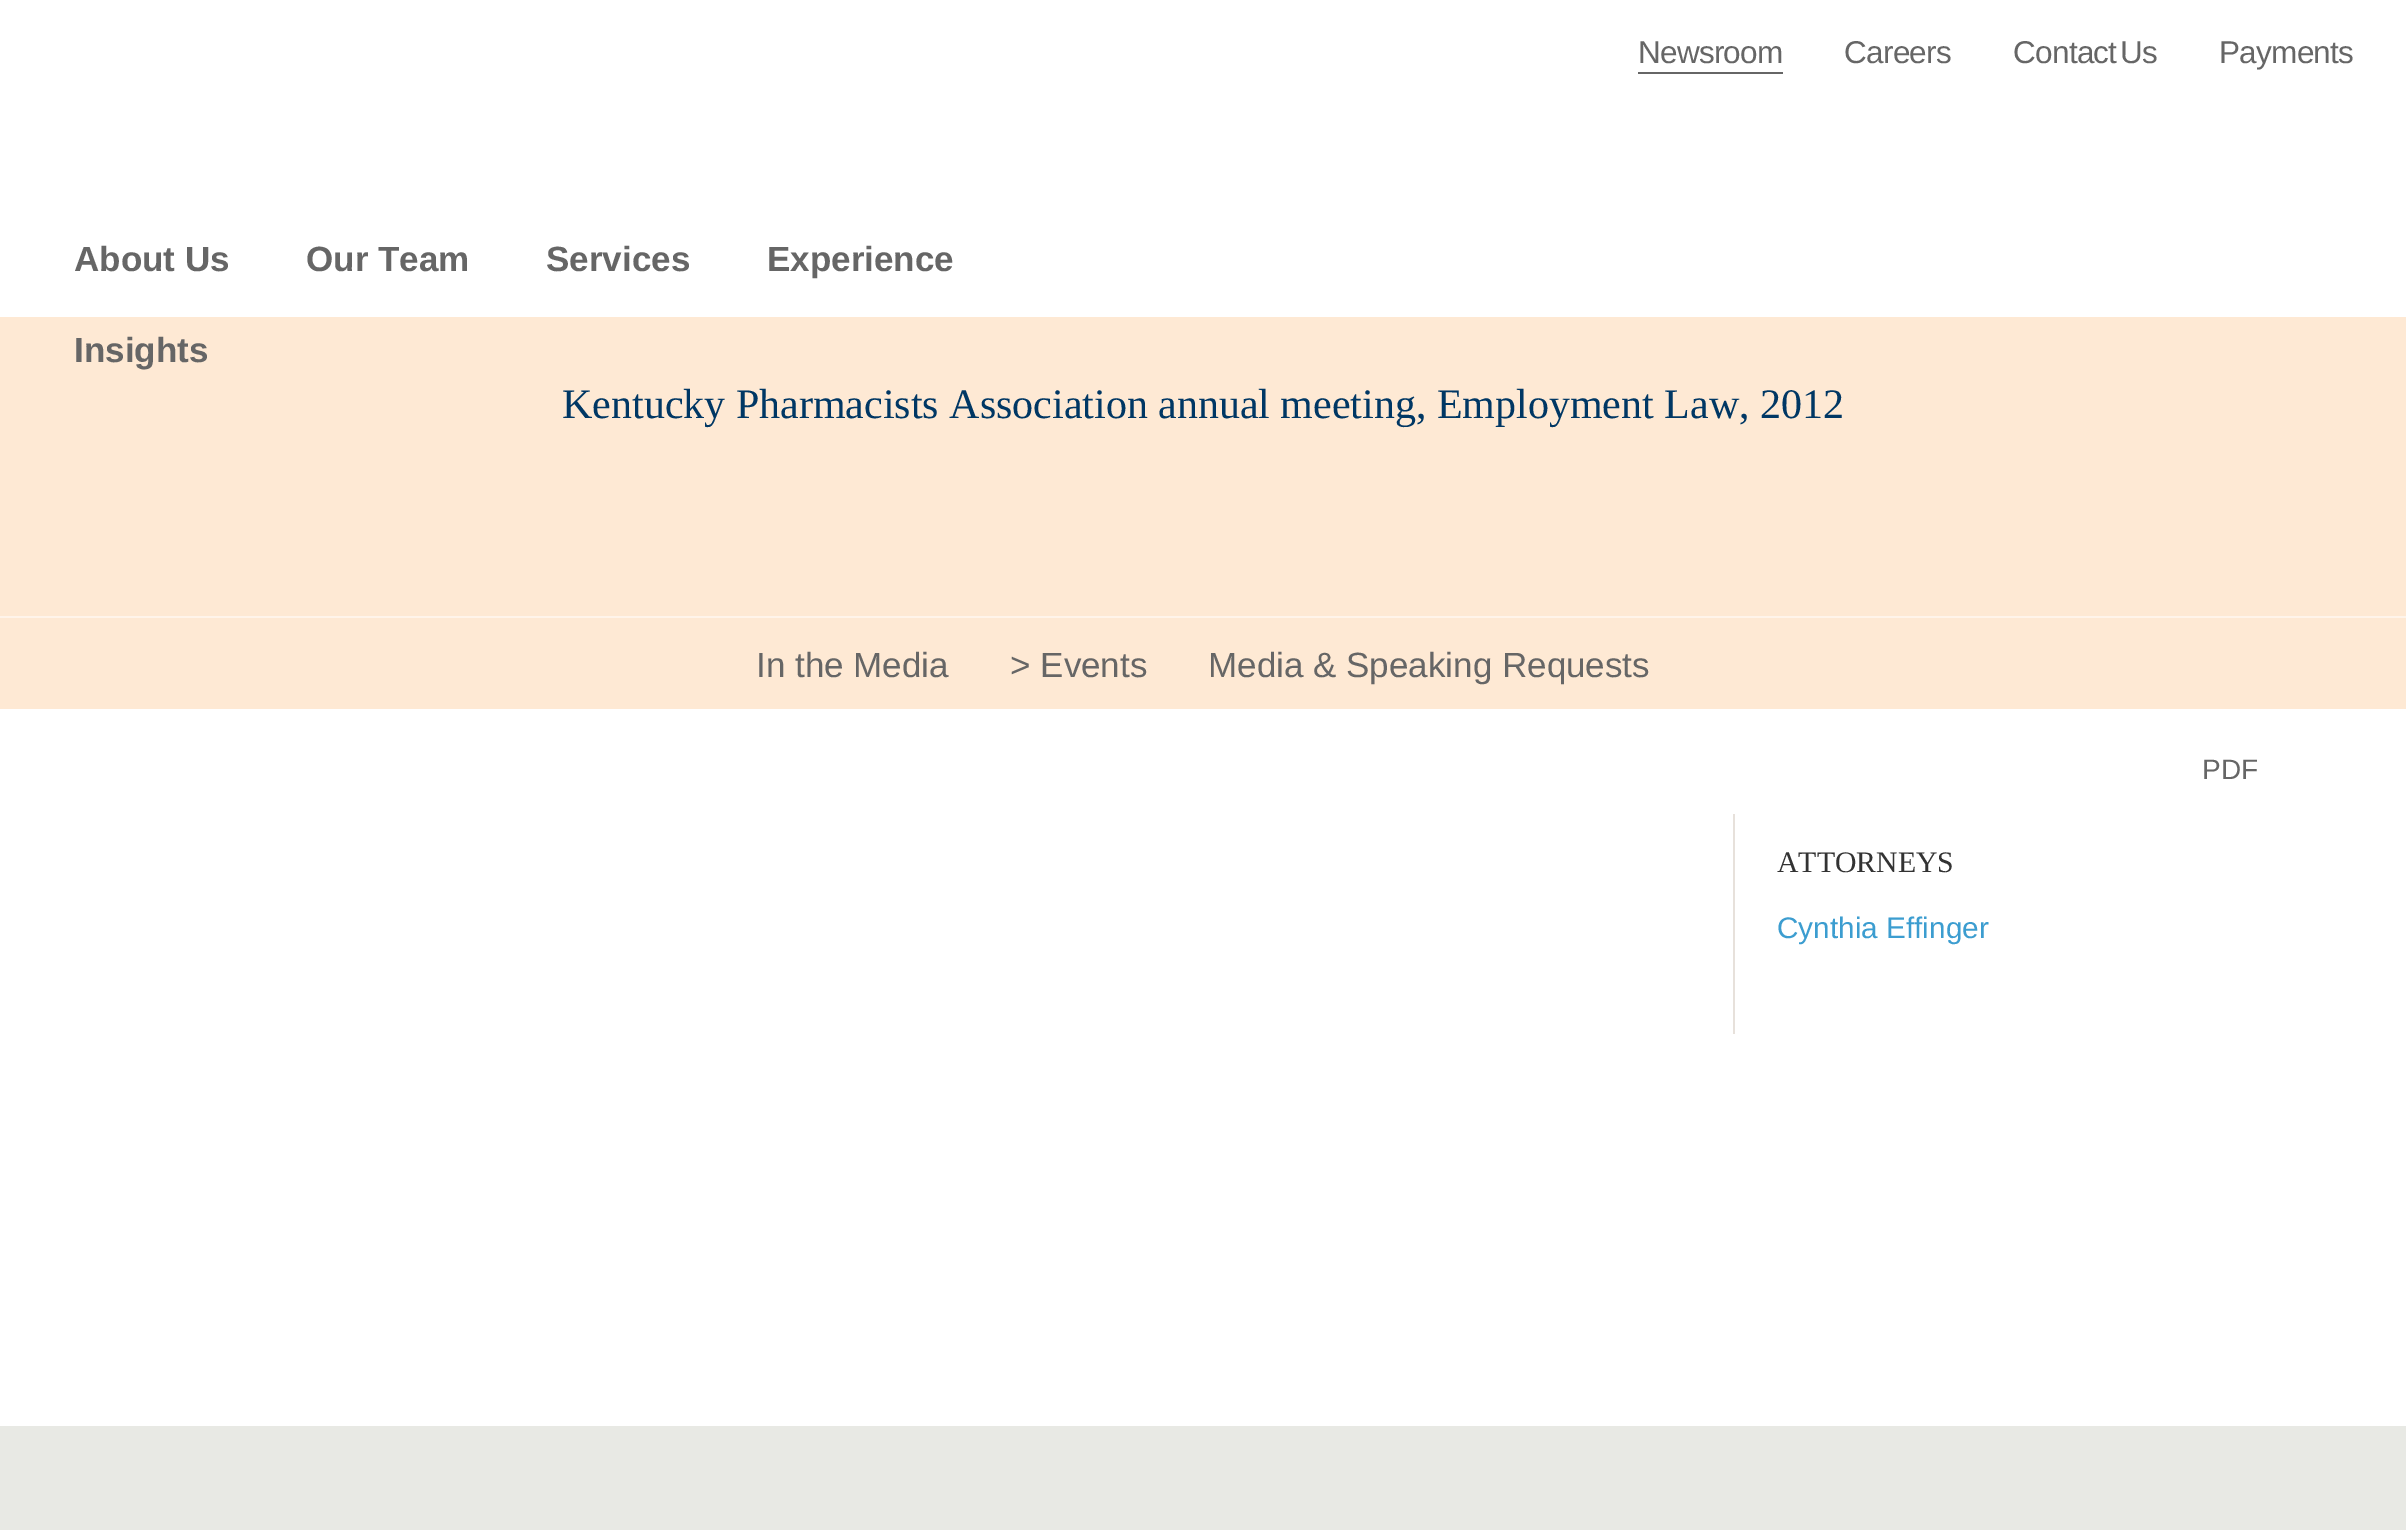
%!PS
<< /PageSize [2406 1530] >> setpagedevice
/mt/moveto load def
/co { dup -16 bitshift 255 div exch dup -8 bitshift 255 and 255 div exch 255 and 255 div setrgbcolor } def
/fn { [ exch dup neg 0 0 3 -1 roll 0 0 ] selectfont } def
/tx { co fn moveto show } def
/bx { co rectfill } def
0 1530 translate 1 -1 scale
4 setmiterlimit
0 0 2406 1530 16#FFFFFF bx
1638 72 145 2 16#666666 bx
0 317 2406 299 16#FEE9D4 bx
0 618 2406 91 16#FEE9D4 bx
0 616 2406 2 16#FFF4EA bx
1733 814 2 220 16#E7E1DB bx
0 1426 2406 104 16#E8E9E4 bx
/LiberationSans-Regular 31.5 fn
16#666666 co
1638 63 mt -.75 0 (Newsroom) ashow
1844 63 mt -.75 0 (Careers) ashow
2013 63 mt -4 0 32 -.75 0 (Contact Us) awidthshow
2219 63 mt -.75 0 (Payments) ashow
(About Us) 74 271 /LiberationSans-Bold 35 16#666666 tx
(Our Team) 306 271 /LiberationSans-Bold 35 16#666666 tx
(Services) 546 271 /LiberationSans-Bold 35 16#666666 tx
(Experience) 767 271 /LiberationSans-Bold 35 16#666666 tx
(Insights) 74 362 /LiberationSans-Bold 35 16#666666 tx
(Kentucky Pharmacists Association annual meeting, Employment Law, 2012) 562 418 /LiberationSerif-Regular 42 16#003764 tx
(In the Media) 756 677 /LiberationSans-Regular 35 16#666666 tx
(> Events) 1010 677 /LiberationSans-Regular 35 16#666666 tx
(Media & Speaking Requests) 1208 677 /LiberationSans-Regular 35 16#666666 tx
(PDF) 2202 779 /LiberationSans-Regular 28 16#666666 tx
(ATTORNEYS) 1777 872 /LiberationSerif-Regular 29.75 16#333333 tx
(Cynthia Effinger) 1777 938 /LiberationSans-Regular 29.75 16#3C9DD0 tx
showpage
